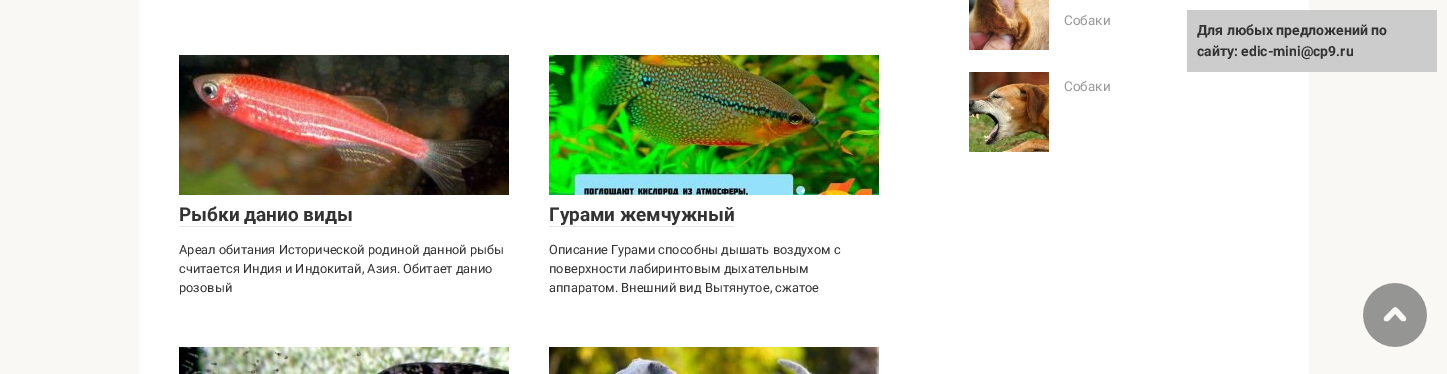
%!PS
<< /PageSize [1447 374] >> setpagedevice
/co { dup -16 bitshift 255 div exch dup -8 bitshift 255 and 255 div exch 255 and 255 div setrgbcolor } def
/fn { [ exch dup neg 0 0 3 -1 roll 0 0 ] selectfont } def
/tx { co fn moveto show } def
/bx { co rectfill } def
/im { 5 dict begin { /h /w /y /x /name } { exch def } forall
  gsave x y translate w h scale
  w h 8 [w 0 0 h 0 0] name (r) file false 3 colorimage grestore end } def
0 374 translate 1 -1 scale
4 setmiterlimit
0 0 1447 374 16#F9F8F5 bx
139 0 1170 374 16#FFFFFF bx
(media/1.raw) 969 0 80 50 im
(media/2.raw) 969 72 80 80 im
(media/3.raw) 179 55 330 140 im
179 226 173 1 16#E6E6E6 bx
(media/4.raw) 549 55 330 140 im
549 226 185 1 16#E6E6E6 bx
(media/5.raw) 179 347 330 27 im
(media/6.raw) 549 347 330 27 im
1187 10 250 62 16#CCCCCC bx
(media/7.raw) 1363 283 64 64 im
(Собаки) 1064 25 /Roboto-Regular 13.5 16#999999 tx
(Собаки) 1064 91 /Roboto-Regular 13.5 16#999999 tx
(Рыбки данио виды) 179 221 /Roboto-Bold 19 16#333333 tx
(Ареал обитания Исторической родиной данной рыбы) 179 254 /Roboto-Regular 12.8 16#333333 tx
(считается Индия и Индокитай, Азия. Обитает данио) 179 273 /Roboto-Regular 12.8 16#333333 tx
(розовый) 179 292 /Roboto-Regular 12.8 16#333333 tx
(Гурами жемчужный) 549 221 /Roboto-Bold 19 16#333333 tx
(Описание Гурами способны дышать воздухом с) 549 254 /Roboto-Regular 12.8 16#333333 tx
(поверхности лабиринтовым дыхательным) 549 273 /Roboto-Regular 12.8 16#333333 tx
(аппаратом. Внешний вид Вытянутое, сжатое) 549 292 /Roboto-Regular 12.8 16#333333 tx
(Для любых предложений по) 1197 35 /Roboto-Bold 14 16#333333 tx
(сайту: edic-mini@cp9.ru) 1197 56 /Roboto-Bold 14 16#333333 tx
showpage
